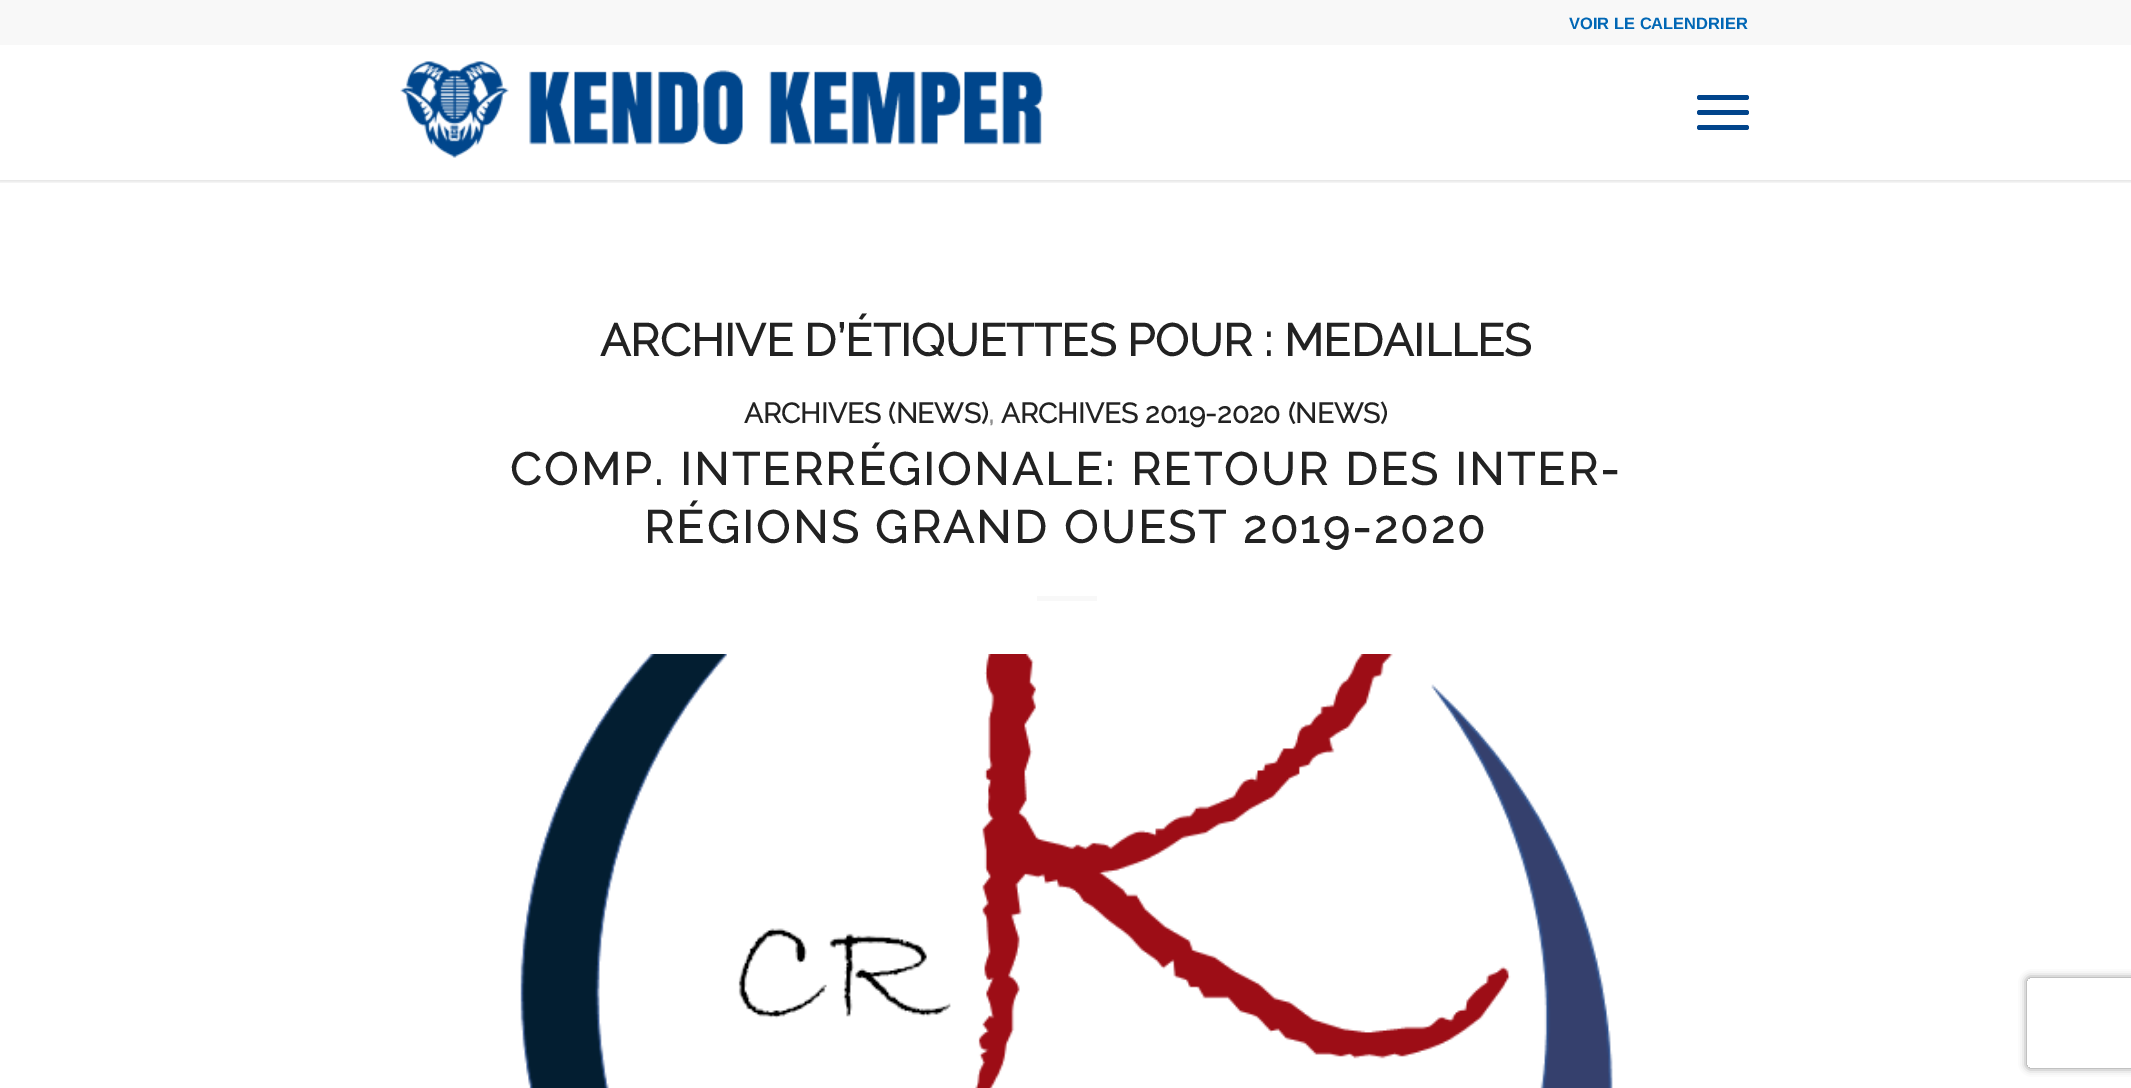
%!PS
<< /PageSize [2131 1088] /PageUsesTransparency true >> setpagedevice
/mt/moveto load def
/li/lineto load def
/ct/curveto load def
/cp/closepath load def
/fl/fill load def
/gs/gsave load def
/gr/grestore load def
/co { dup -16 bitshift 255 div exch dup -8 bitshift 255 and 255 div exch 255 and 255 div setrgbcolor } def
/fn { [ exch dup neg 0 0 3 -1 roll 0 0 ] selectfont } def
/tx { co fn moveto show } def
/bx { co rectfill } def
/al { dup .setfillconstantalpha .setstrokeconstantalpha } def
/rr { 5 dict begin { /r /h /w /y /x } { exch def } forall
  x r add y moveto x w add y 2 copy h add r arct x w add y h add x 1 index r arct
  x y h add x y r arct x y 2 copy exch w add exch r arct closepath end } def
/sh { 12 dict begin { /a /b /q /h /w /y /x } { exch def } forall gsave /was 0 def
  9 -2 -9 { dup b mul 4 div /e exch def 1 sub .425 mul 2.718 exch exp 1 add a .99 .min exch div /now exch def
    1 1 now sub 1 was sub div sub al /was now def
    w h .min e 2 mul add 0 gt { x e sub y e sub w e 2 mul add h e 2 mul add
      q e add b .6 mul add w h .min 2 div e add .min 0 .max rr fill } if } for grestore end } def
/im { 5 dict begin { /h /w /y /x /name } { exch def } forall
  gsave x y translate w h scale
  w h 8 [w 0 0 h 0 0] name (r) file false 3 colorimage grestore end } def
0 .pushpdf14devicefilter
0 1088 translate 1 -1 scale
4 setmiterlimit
0 0 2131 1088 16#FFFFFF bx
gs
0 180 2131 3 rectclip
16#000000 co
-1 -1 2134 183 0 1.5 .1 sh
gr
0 0 2131 45 16#F8F8F8 bx
(media/1.raw) 400 61 643 97 im
16#01458C co
1697 110 52 5 2.5 rr fl
1697 95 52 5 2.5 rr fl
1697 125 52 5 2.5 rr fl
1037 596 60 5 16#F8F8F8 bx
(media/2.raw) 520 654 1093 434 im
gs
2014 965 mt 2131 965 li 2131 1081 li 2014 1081 li cp 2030 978 mt 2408 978 li 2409.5 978 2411 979.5 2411 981 ct 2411 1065 li 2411 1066.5 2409.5 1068 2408 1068 ct 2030 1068 li 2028.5 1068 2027 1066.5 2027 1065 ct 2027 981 li 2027 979.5 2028.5 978 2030 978 ct cp eoclip newpath
16#808080 co
2027 978 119 90 3 4 1 sh
gr
(VOIR LE CALENDRIER) 1569 29 /LiberationSans-Bold 16.5 16#0167B5 tx
(ARCHIVE D’ÉTIQUETTES POUR : MEDAILLES) 600 356 /Raleway-Bold 45 16#222222 tx
(ARCHIVES \(NEWS\)) 744 423 /Raleway-Bold 28 16#222222 tx
(,) 988 423 /Raleway-Bold 28 16#919191 tx
(ARCHIVES 2019-2020 \(NEWS\)) 1001 423 /Raleway-Bold 28 16#222222 tx
/Raleway-Bold 45 fn
510 485 mt 3 0 (COMP. INTERRÉGIONALE: RETOUR DES INTER-) ashow
644 543 mt 3 0 (RÉGIONS GRAND OUEST 2019-2020) ashow
.poppdf14devicefilter showpage
